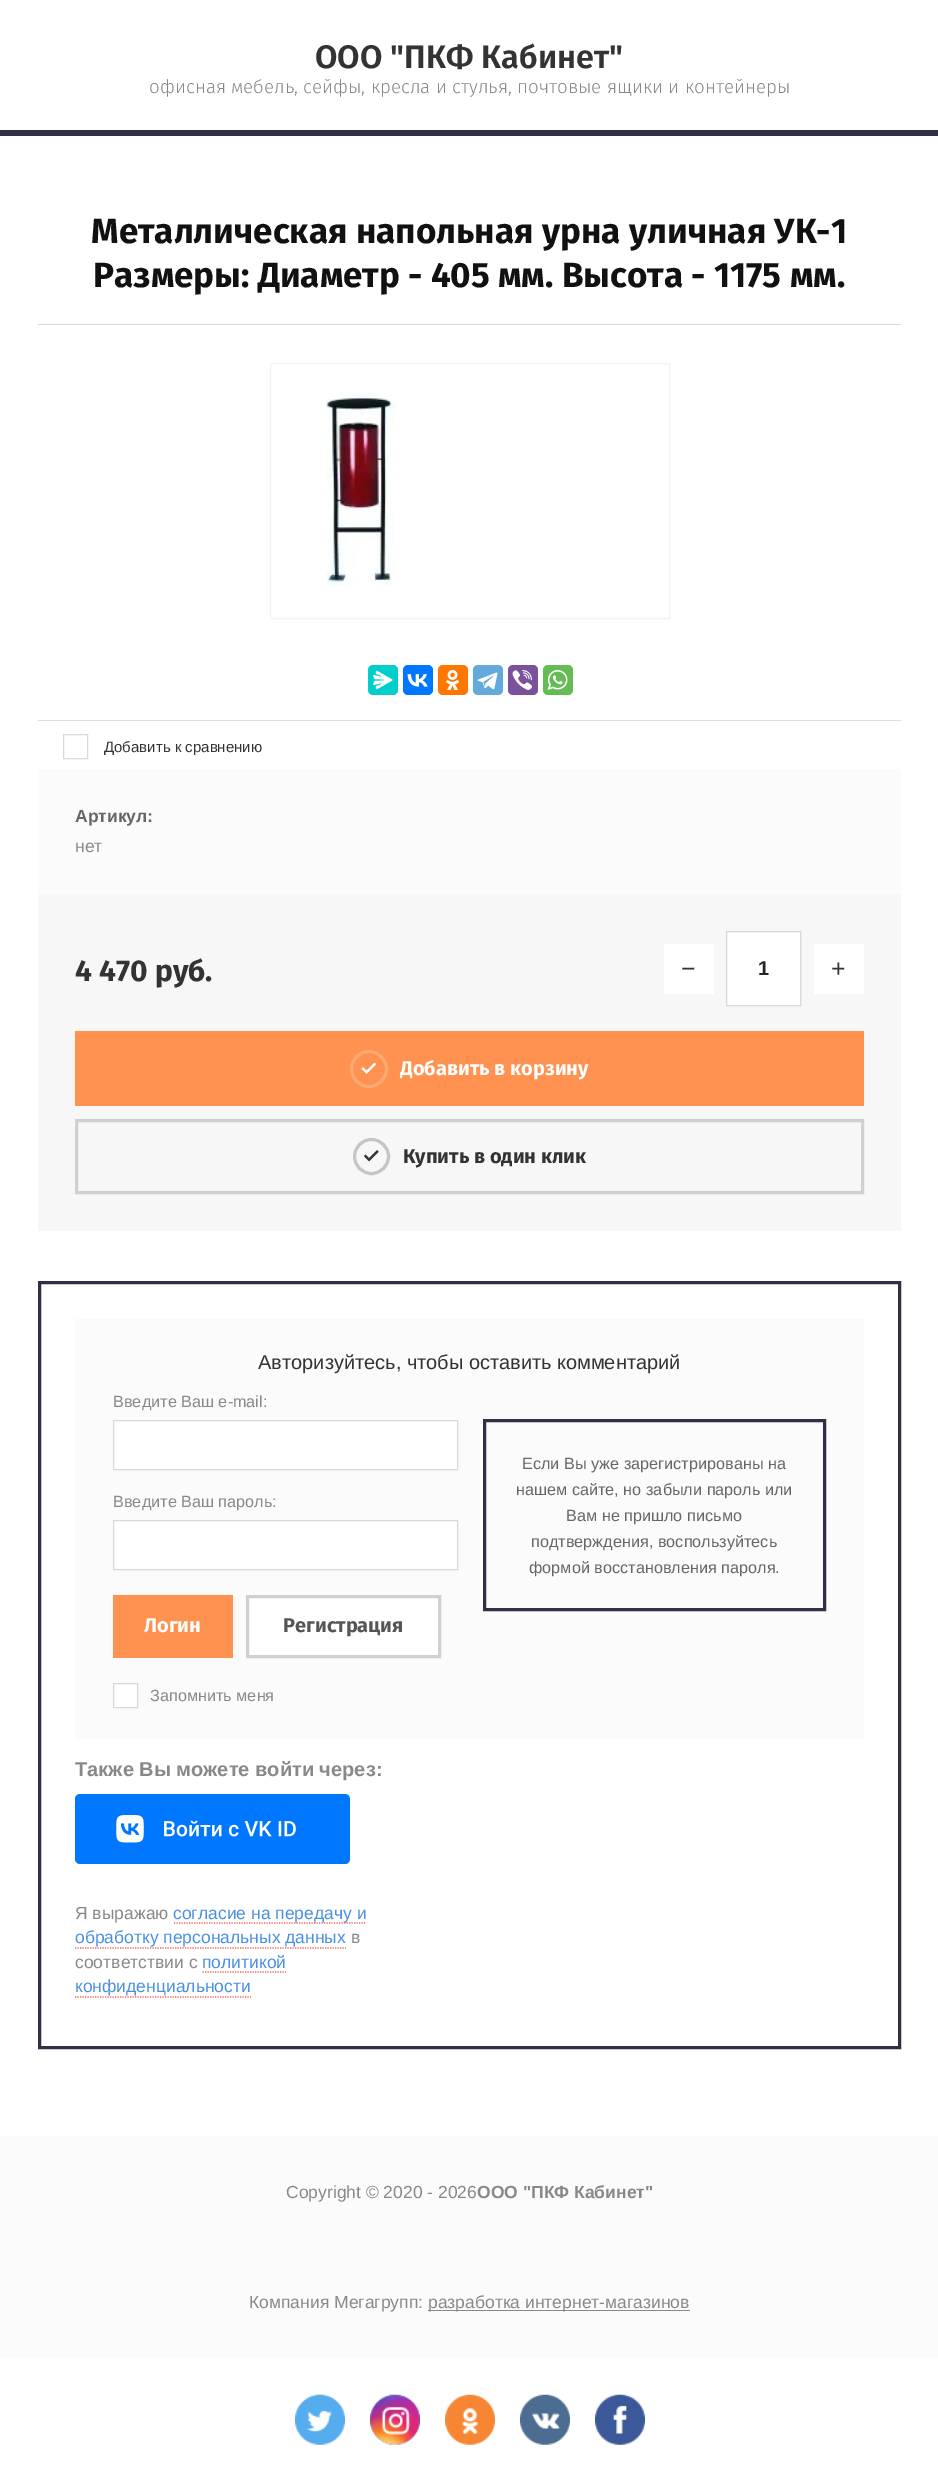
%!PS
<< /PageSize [938 2482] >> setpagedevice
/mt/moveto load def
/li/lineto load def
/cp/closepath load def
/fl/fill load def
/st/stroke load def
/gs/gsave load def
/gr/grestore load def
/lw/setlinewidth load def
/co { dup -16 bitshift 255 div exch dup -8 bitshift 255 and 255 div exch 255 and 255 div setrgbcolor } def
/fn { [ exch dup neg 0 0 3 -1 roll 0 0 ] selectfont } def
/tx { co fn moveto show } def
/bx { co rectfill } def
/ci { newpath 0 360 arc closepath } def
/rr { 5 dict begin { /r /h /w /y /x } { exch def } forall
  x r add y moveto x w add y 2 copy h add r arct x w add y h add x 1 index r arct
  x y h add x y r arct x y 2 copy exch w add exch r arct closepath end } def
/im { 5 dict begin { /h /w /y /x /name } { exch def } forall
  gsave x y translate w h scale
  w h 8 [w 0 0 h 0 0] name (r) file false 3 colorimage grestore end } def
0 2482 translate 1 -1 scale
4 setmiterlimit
0 0 938 2482 16#FFFFFF bx
0 130 938 6 16#2F2F46 bx
38 324 863 1 16#D8D8D8 bx
16#F3F3F3 co
270.5 363.5 399 255 rectstroke
(media/1.raw) 326 393 70 193 im
16#03CECE co
368 665 30 30 5 rr fl
(media/2.raw) 373 670 20 20 im
16#0077FF co
403 665 30 30 5 rr fl
(media/3.raw) 407 674 21 13 im
16#FF7700 co
438 665 30 30 5 rr fl
(media/4.raw) 445 670 15 20 im
16#64A9DC co
473 665 30 30 5 rr fl
(media/5.raw) 477 672 21 18 im
16#7B519D co
508 665 30 30 5 rr fl
(media/6.raw) 512 670 20 20 im
16#65BC54 co
543 665 30 30 5 rr fl
(media/7.raw) 547 670 21 20 im
38 720 863 1 16#DEDEDE bx
16#D9D9D9 co
63.5 734.5 24 24 rectstroke
38 769 863 125 16#FBFBFB bx
38 894 863 337 16#F7F7F7 bx
664 944 50 50 16#FFFFFF bx
726.5 931.5 mt 800.5 931.5 li 800.5 1005.5 li 726.5 1005.5 li cp gs fl gr
16#D8D8D8 co
st
814 944 50 50 16#FFFFFF bx
75 1031 789 75 16#FF9250 bx
(media/8.raw) 361 1063 15 11 im
16#FFA873 co
3 lw
369 1069 17.5 ci st
16#D0D0D0 co
76.5 1120.5 786 72 rectstroke
(media/9.raw) 364 1150 15 12 im
16#C5C5C5 co
371.5 1156.5 17 ci st
16#2F2F46 co
39.5 1282.5 860 765 rectstroke
75 1319 789 420 16#FBFBFB bx
16#FFFFFF co
113.5 1420.5 mt 457.5 1420.5 li 457.5 1469.5 li 113.5 1469.5 li cp gs fl gr
16#D8D8D8 co
1 lw
st
16#FFFFFF co
113.5 1520.5 mt 457.5 1520.5 li 457.5 1569.5 li 113.5 1569.5 li cp gs fl gr
16#D8D8D8 co
st
113 1595 120 63 16#FF9250 bx
16#FFFFFF co
247.5 1596.5 mt 439.5 1596.5 li 439.5 1656.5 li 247.5 1656.5 li cp gs fl gr
16#D0D0D0 co
3 lw
st
16#FFFFFF co
113.5 1683.5 mt 137.5 1683.5 li 137.5 1707.5 li 113.5 1707.5 li cp gs fl gr
16#D8D8D8 co
1 lw
st
16#2F2F46 co
3 lw
484.5 1420.5 340 189 rectstroke
16#0077FF co
75 1794 275 70 5 rr fl
(media/10.raw) 116 1815 180 28 im
16#F06354 co
1.2 lw
[1.25 1.25] 0 setdash
174 1923 mt 366 1923 li st
75 1948 mt 346 1948 li st
202.5 1972 mt 286 1972 li st
75 1997 mt 251 1997 li st
0 2136 938 222 16#FBFBFB bx
428 2310 262 1 16#888888 bx
(media/11.raw) 295 2394 50 51 im
(media/12.raw) 370 2394 50 51 im
(media/13.raw) 445 2394 50 51 im
(media/14.raw) 520 2394 50 51 im
(media/15.raw) 595 2394 50 51 im
(ООО "ПКФ Кабинет") 315 68 /FiraSans-SemiBold 32.5 16#333333 tx
(офисная мебель, сейфы, кресла и стулья, почтовые ящики и контейнеры) 149 93 /FiraSans-Light 18.75 16#888888 tx
(Металлическая напольная урна уличная УК-1) 91 243 /FiraSans-Bold 35 16#111111 tx
(Размеры: Диаметр - 405 мм. Высота - 1175 мм.) 93 287 /FiraSans-Bold 35 16#111111 tx
(Добавить к сравнению) 104 752 /LiberationSans-Regular 15 16#333333 tx
(Артикул:) 75 822 /LiberationSans-Bold 17.5 16#666666 tx
(нет) 75 852 /LiberationSans-Regular 17.5 16#888888 tx
(4 470 руб.) 75 981 /FiraSans-Bold 30 16#333333 tx
(−) 681 977 /LiberationSans-Regular 25 16#333333 tx
(1) 758 975 /LiberationSans-Bold 20 16#262626 tx
(+) 831 977 /LiberationSans-Regular 25 16#333333 tx
gs
400 1048 189 42 rectclip
(Добавить в корзину) 400 1075 /FiraSans-Bold 20 16#FFFFFF tx
gr
(Купить в один клик) 403 1163 /FiraSans-Bold 20 16#333333 tx
(Авторизуйтесь, чтобы оставить комментарий) 258 1369 /LiberationSans-Regular 20 16#333333 tx
(Введите Ваш e-mail:) 113 1407 /LiberationSans-Regular 16.25 16#888888 tx
(Введите Ваш пароль:) 113 1507 /LiberationSans-Regular 16.25 16#888888 tx
(Логин) 144 1632 /FiraSans-Bold 20 16#FFFFFF tx
(Регистрация) 283 1632 /FiraSans-Bold 20 16#555555 tx
(Запомнить меня) 150 1701 /LiberationSans-Regular 16.25 16#888888 tx
(Если Вы уже зарегистрированы на) 522 1469 /LiberationSans-Regular 16.25 16#666666 tx
(нашем сайте, но забыли пароль или) 516 1495 /LiberationSans-Regular 16.25 16#666666 tx
(Вам не пришло письмо) 566 1521 /LiberationSans-Regular 16.25 16#666666 tx
(подтверждения, воспользуйтесь) 531 1547 /LiberationSans-Regular 16.25 16#666666 tx
(формой восстановления пароля.) 529 1573 /LiberationSans-Regular 16.25 16#666666 tx
(Также Вы можете войти через:) 75 1776 /LiberationSans-Bold 20 16#888888 tx
(Я выражаю) 75 1919 /LiberationSans-Regular 17.5 16#888888 tx
(согласие на передачу и) 173 1919 /LiberationSans-Regular 17.5 16#4A90E2 tx
(обработку персональных данных) 75 1943 /LiberationSans-Regular 17.5 16#4A90E2 tx
(в) 351 1943 /LiberationSans-Regular 17.5 16#888888 tx
(соответствии с) 75 1968 /LiberationSans-Regular 17.5 16#888888 tx
(политикой) 202 1968 /LiberationSans-Regular 17.5 16#4A90E2 tx
(конфиденциальности) 75 1992 /LiberationSans-Regular 17.5 16#4A90E2 tx
(Copyright © 2020 - 2026) 286 2198 /LiberationSans-Regular 17.5 16#888888 tx
(ООО "ПКФ Кабинет") 477 2198 /LiberationSans-Bold 17.5 16#888888 tx
(Компания Мегагрупп:) 249 2308 /LiberationSans-Regular 17.5 16#888888 tx
(разработка интернет-магазинов) 428 2308 /LiberationSans-Regular 17.5 16#888888 tx
showpage
